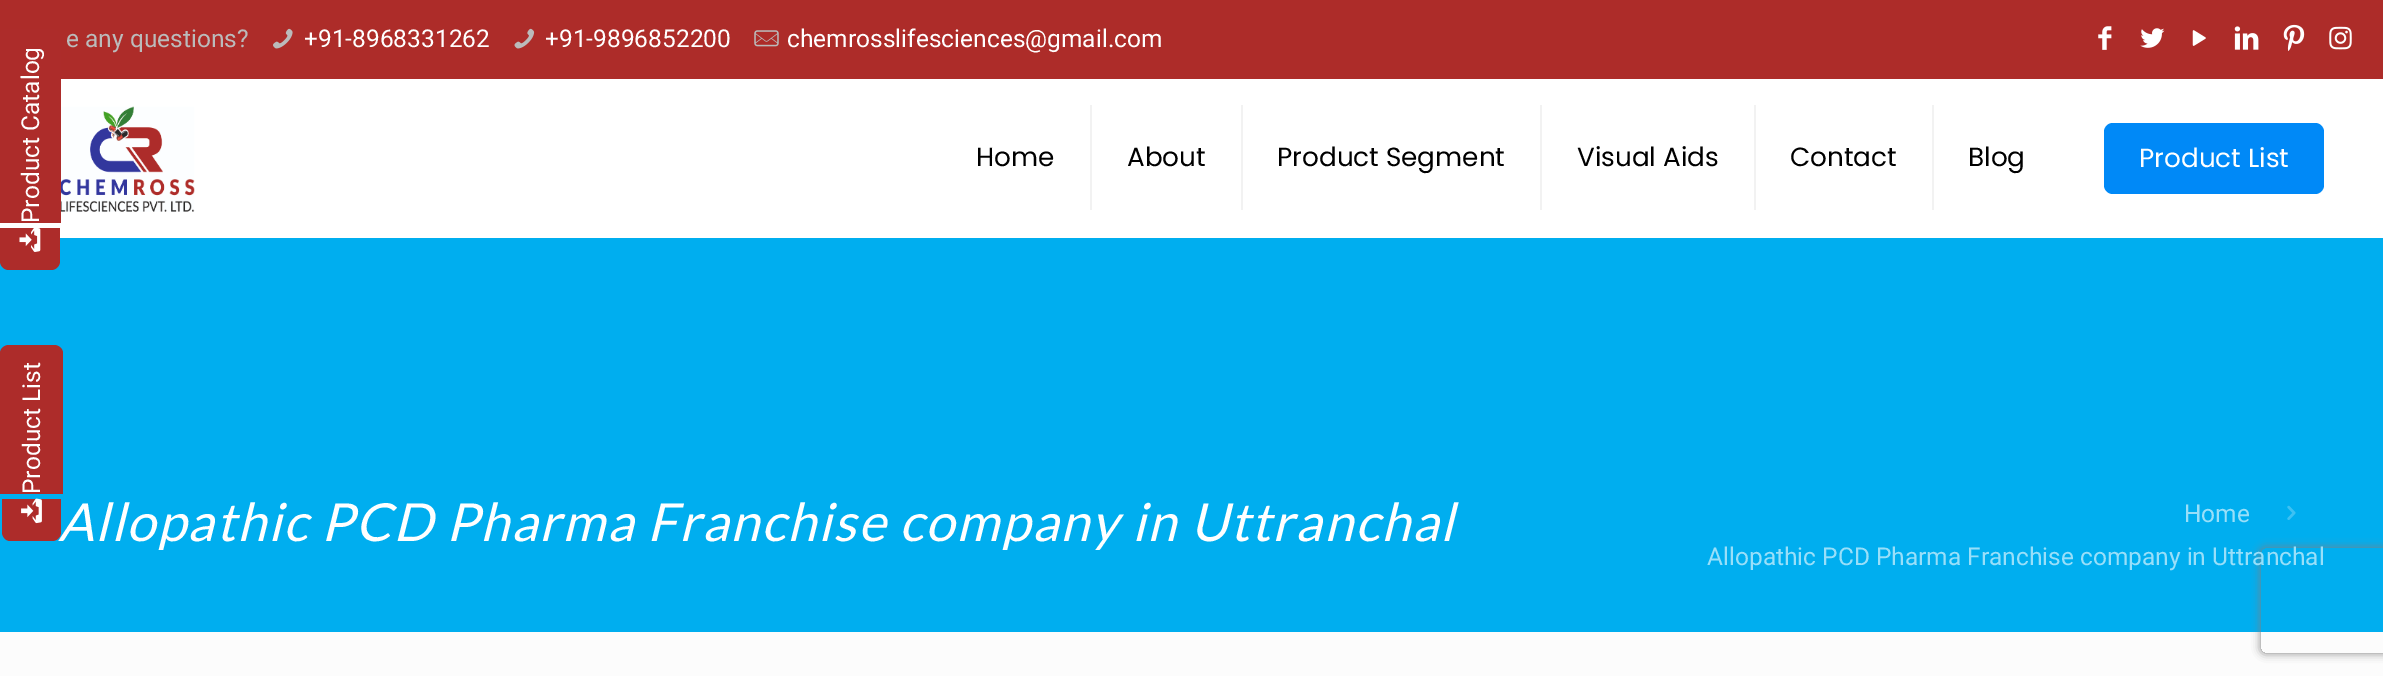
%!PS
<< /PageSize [2383 676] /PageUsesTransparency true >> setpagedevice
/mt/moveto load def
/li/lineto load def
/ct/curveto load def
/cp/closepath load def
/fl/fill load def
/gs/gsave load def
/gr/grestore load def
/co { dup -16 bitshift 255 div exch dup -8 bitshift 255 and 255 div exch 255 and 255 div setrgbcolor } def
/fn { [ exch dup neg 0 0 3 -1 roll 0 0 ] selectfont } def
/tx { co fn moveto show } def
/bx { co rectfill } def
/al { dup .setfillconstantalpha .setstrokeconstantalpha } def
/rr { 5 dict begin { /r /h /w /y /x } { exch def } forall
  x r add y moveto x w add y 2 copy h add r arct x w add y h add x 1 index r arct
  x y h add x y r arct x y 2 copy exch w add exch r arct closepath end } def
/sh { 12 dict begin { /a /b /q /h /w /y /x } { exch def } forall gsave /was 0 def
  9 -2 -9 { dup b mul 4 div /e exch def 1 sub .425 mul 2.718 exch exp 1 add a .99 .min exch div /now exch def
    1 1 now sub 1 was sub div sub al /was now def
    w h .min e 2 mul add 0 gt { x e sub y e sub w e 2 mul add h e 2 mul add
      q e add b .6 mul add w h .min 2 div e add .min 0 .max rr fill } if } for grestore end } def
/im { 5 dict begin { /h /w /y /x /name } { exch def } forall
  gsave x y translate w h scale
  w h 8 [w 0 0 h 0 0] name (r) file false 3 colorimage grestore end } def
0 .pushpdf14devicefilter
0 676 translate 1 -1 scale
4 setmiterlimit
0 0 2383 676 16#FCFCFC bx
0 238 2383 394 16#00AEEF bx
0 79 2383 159 16#FFFFFF bx
16#AD2C2A co
0 261 mt 0 228 li 60 228 li 60 261 li 60 266 56 270 51 270 ct 9 270 li 4 270 0 266 0 261 ct cp fl
0 0 2383 79 16#AD2C29 bx
16#AD2C2A co
-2 223 mt -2 38 li -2 33 2 29 7 29 ct 52 29 li 57 29 61 33 61 38 ct 61 223 li cp fl
(media/1.raw) 19 228 22 24 im
(media/2.raw) 273 28 20 21 im
(media/3.raw) 514 28 21 21 im
(media/4.raw) 754 30 25 17 im
(media/5.raw) 2098 26 14 24 im
(media/6.raw) 2140 28 25 20 im
(media/7.raw) 2192 30 14 16 im
(media/8.raw) 2234 26 25 24 im
(media/9.raw) 2283 24 22 27 im
(media/10.raw) 2329 26 23 24 im
(media/11.raw) 61 106 134 106 im
1090 105 2 105 16#F2F2F2 bx
1241 105 2 105 16#F2F2F2 bx
1540 105 2 105 16#F2F2F2 bx
1754 105 2 105 16#F2F2F2 bx
1932 105 2 105 16#F2F2F2 bx
16#0089F7 co
2104 123 220 71 9 rr fl
(media/12.raw) 2287 505 9 15 im
16#AD2C2A co
0 494 mt 0 353 li 0 349 4 345 9 345 ct 54 345 li 59 345 63 349 63 353 ct 63 494 li cp fl
gs
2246 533 mt 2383 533 li 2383 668 li 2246 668 li cp 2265 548 mt 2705 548 li 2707 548 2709 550 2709 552 ct 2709 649 li 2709 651 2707 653 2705 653 ct 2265 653 li 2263 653 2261 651 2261 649 ct 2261 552 li 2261 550 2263 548 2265 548 ct cp eoclip newpath
16#808080 co
2261 548 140 105 4 4.5 1 sh
gr
/Roboto-Regular 24.5 fn
16#FFFFFF co
gs 39 223 translate -90 rotate 0 0 mt (Product Catalog) show gr
(e any questions?) 66 47 /Roboto-Regular 24.5 16#BBBBBB tx
(+91-8968331262) 304 47 /Roboto-Regular 24.5 16#FFFFFF tx
(+91-9896852200) 545 47 /Roboto-Regular 24.5 16#FFFFFF tx
(chemrosslifesciences@gmail.com) 787 47 /Roboto-Regular 24.5 16#FFFFFF tx
(Home) 976 166 /Poppins-Regular 26.25 16#000000 tx
(About) 1127 166 /Poppins-Regular 26.25 16#000000 tx
(Product Segment) 1277 166 /Poppins-Regular 26.25 16#000000 tx
(Visual Aids) 1577 166 /Poppins-Regular 26.25 16#000000 tx
(Contact) 1790 166 /Poppins-Regular 26.25 16#000000 tx
(Blog) 1968 166 /Poppins-Regular 26.25 16#000000 tx
(Product List) 2139 167 /Poppins-Regular 26.25 16#FFFFFF tx
/Lato-Italic 52.5 fn
58 541 mt 1.75 0 (Allopathic PCD Pharma Franchise company in Uttranchal) ashow
(Home) 2184 522 /Roboto-Regular 24.5 16#99DFF9 tx
(Allopathic PCD Pharma Franchise company in Uttranchal) 1707 565 /Roboto-Regular 24.5 16#99DFF9 tx
16#AD2C2A co
2 532 mt 2 499 li 61 499 li 61 532 li 61 537 57 541 52 541 ct 10 541 li 6 541 2 537 2 532 ct cp fl
16#FFFFFF co
gs 40 494 translate -90 rotate 0 0 mt (Product List) show gr
(media/13.raw) 21 498 21 26 im
.poppdf14devicefilter showpage
